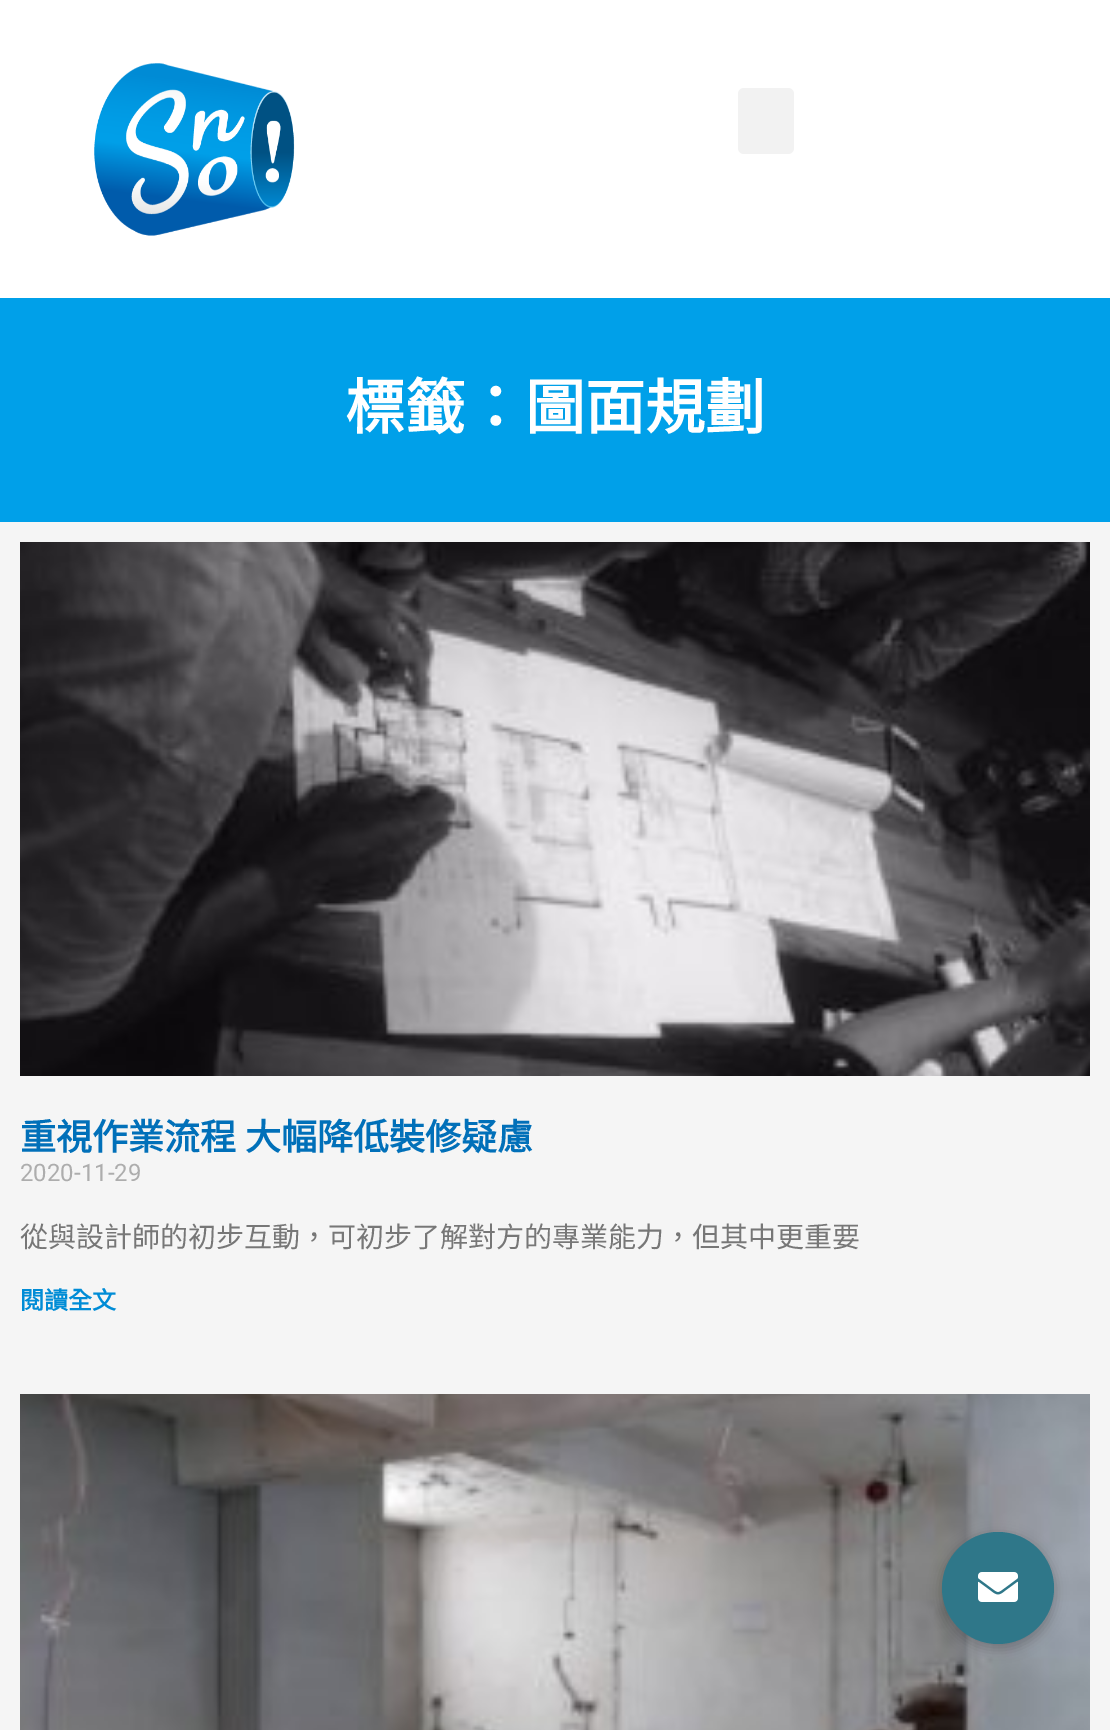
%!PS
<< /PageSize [1110 1730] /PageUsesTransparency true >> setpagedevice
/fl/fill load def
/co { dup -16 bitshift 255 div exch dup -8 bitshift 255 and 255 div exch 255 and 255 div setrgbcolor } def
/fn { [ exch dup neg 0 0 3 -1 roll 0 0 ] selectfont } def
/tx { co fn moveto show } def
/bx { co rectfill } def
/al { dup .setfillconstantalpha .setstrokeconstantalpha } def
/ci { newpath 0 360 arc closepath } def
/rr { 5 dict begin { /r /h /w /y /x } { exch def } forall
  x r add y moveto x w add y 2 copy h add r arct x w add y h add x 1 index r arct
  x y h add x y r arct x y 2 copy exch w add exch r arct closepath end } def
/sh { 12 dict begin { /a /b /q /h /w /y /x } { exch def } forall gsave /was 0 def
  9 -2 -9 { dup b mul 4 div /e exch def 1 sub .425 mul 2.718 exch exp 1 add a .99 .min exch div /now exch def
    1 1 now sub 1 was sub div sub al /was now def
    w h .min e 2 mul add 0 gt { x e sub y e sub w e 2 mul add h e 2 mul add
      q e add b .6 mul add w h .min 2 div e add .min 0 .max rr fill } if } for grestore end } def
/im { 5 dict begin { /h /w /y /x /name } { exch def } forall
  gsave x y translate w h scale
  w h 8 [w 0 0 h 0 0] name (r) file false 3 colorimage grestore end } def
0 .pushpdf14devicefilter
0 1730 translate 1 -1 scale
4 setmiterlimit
0 0 1110 1730 16#F5F5F5 bx
0 0 1110 298 16#FFFFFF bx
(media/1.raw) 94 63 201 173 im
16#F2F2F2 co
738 88 56 66 6 rr fl
0 298 1110 224 16#00A0E9 bx
(media/2.raw) 20 542 1070 534 im
(media/3.raw) 20 1394 1070 336 im
16#000000 co
940 1534 116 116 58 6 .2 sh
16#2F7789 co
998 1588 56 ci fl
(media/4.raw) 978 1572 40 30 im
(標籤：圖面規劃) 345 429 /NotoSansCJKTC-Bold 60 16#FFFFFF tx
(重視作業流程) 20 1150 /NotoSansCJKTC-Bold 36 16#0170B9 tx
(大幅降低裝修疑慮) 245 1150 /NotoSansCJKTC-Bold 36 16#0170B9 tx
(2020-11-29) 20 1181 /Roboto-Regular 24 16#ADADAD tx
(從與設計師的初步互動，可初步了解對方的專業能力，但其中更重要) 20 1247 /NotoSansCJKTC-Regular 28 16#777777 tx
(閱讀全文) 20 1309 /NotoSansCJKTC-Bold 24 16#008CD6 tx
.poppdf14devicefilter showpage
